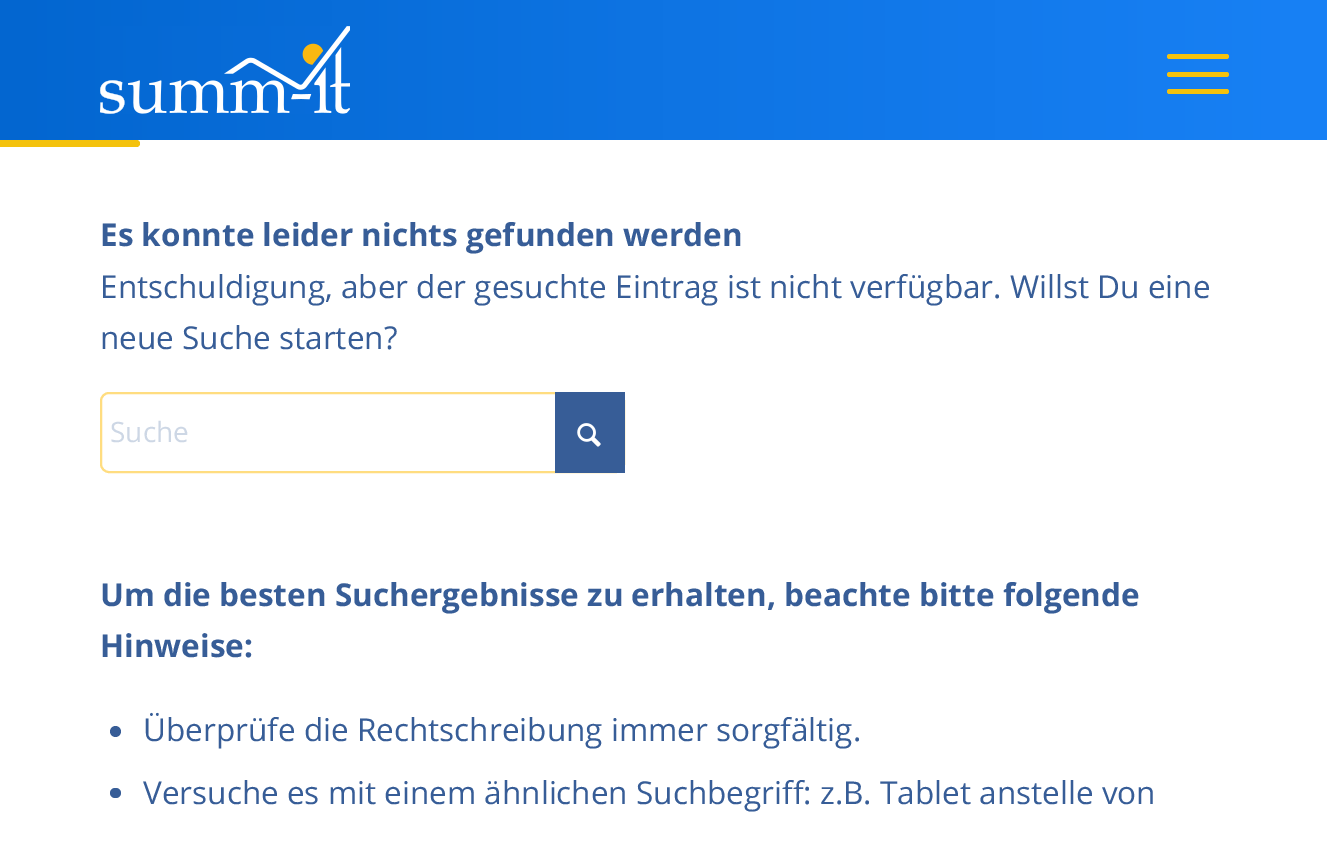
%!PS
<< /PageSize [1327 845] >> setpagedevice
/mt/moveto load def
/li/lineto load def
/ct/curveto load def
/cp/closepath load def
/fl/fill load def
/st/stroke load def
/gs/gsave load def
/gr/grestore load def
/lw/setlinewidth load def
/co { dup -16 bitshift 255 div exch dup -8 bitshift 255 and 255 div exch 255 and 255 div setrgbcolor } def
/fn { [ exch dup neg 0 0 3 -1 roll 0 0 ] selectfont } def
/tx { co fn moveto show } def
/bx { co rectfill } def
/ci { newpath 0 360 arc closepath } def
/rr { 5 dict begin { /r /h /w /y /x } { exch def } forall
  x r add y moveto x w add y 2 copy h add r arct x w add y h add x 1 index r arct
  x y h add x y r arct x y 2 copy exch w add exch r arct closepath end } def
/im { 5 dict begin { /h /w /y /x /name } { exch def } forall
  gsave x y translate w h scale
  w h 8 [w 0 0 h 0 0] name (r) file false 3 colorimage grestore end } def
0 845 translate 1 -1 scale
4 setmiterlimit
0 0 1327 845 16#FFFFFF bx
gs 0 0 mt 1327 0 li 1327 140 li 0 140 li cp clip newpath
<< /ShadingType 2 /ColorSpace /DeviceRGB /Coords [0 70 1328 70] /Extend [true true] /Function << /FunctionType 2 /Domain [0 1] /C0 [.012 .4 .816] /C1 [.094 .506 .961] /N 1 >> >> shfill gr
(media/1.raw) 100 26 250 88 im
16#F4C20D co
1167 72 62 5 2.5 rr fl
1167 54 62 5 2.5 rr fl
1167 89 62 5 2.5 rr fl
0 140 mt 136.5 140 li 138.5 140 140 141.5 140 143.5 ct 140 145.5 138.5 147 136.5 147 ct 0 147 li cp fl
16#FFDD80 co
2 lw
101 393 523 79 8 rr st
555 392 70 81 16#375D97 bx
(media/2.raw) 577 423 24 24 im
115.5 731.5 5.5 ci fl
110 788 11 10 5 rr fl
(Es konnte leider nichts gefunden werden) 100 246 /OpenSans-Bold 31.5 16#375D97 tx
(Entschuldigung, aber der gesuchte Eintrag ist nicht verfügbar. Willst Du eine) 100 298 /OpenSans-Regular 31.5 16#375D97 tx
(neue Suche starten?) 100 349 /OpenSans-Regular 31.5 16#375D97 tx
(Suche) 110 442 /OpenSans-Regular 28 16#CDD7E5 tx
(Um die besten Suchergebnisse zu erhalten, beachte bitte folgende) 100 606 /OpenSans-Bold 31.5 16#375D97 tx
(Hinweise:) 100 657 /OpenSans-Bold 31.5 16#375D97 tx
(Überprüfe die Rechtschreibung immer sorgfältig.) 143 741 /OpenSans-Regular 31.5 16#375D97 tx
(Versuche es mit einem ähnlichen Suchbegriff: z.B. Tablet anstelle von) 143 804 /OpenSans-Regular 31.5 16#375D97 tx
showpage
